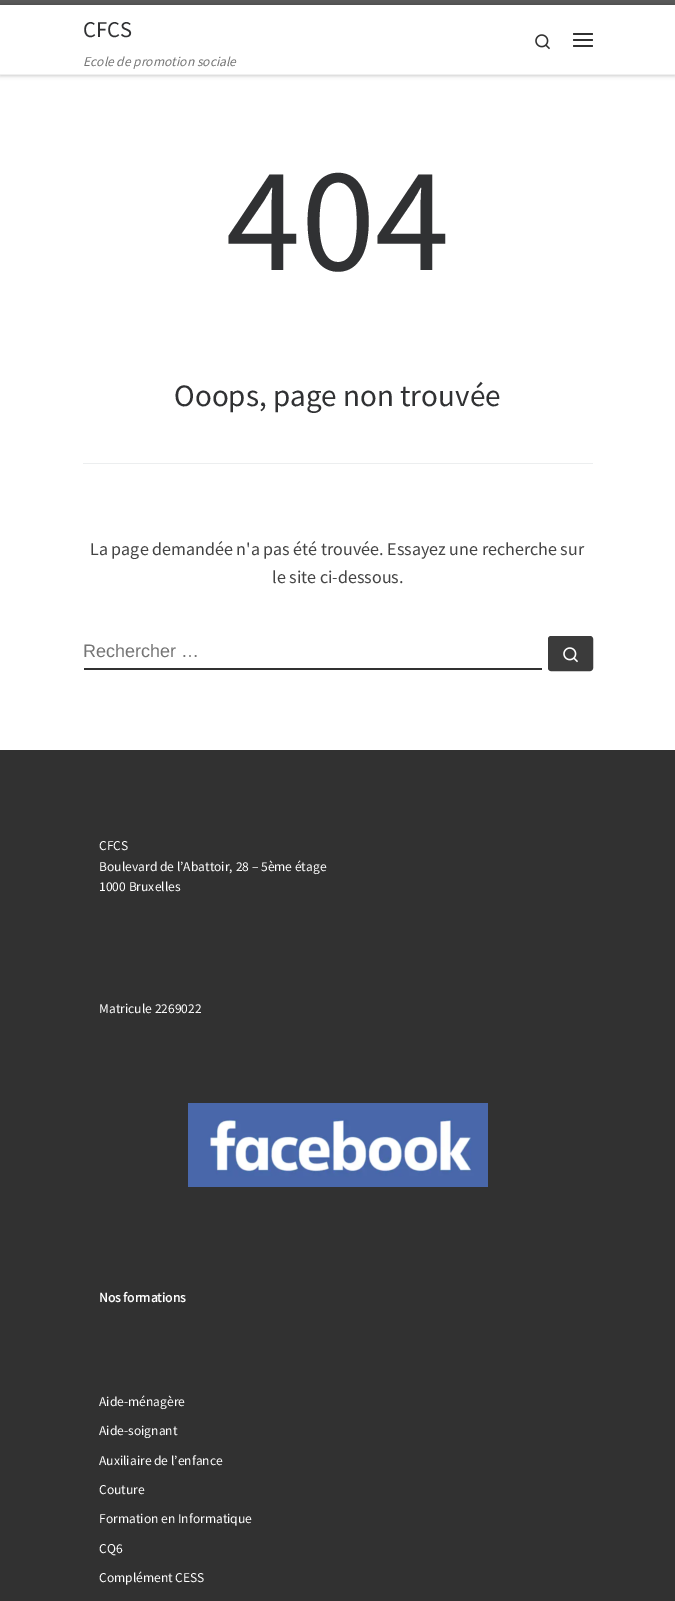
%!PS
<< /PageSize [675 1601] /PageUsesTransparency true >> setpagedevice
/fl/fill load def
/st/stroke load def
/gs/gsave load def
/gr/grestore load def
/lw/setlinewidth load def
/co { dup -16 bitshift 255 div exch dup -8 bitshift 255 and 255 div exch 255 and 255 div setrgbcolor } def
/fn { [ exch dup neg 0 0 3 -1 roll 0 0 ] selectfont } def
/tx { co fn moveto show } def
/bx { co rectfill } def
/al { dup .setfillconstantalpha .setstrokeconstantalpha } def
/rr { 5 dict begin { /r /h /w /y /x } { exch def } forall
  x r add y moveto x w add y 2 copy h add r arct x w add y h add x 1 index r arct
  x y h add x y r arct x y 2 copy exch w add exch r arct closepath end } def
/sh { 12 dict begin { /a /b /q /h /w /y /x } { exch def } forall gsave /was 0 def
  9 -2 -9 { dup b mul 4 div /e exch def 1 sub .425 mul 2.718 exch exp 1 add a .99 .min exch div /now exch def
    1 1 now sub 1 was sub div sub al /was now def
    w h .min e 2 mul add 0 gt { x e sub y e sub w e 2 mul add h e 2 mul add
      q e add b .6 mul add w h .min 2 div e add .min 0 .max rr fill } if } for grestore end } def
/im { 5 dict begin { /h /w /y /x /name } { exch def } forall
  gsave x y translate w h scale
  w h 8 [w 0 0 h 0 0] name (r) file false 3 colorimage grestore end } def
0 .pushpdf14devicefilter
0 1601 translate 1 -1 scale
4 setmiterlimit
0 0 675 1601 16#FFFFFF bx
16#666666 co
0 2 675 74 0 1 .08 sh
0 0 675 5 16#5A5A5A bx
16#000000 co
0 5 675 70 0 2.5 .2 sh
0 5 675 69 16#FFFFFF bx
(media/1.raw) 535 34 15 16 im
16#313131 co
573 33 20 2 1 rr fl
573 39 20 2 1 rr fl
573 45 20 2 1 rr fl
0 74 675 1 16#F0F0F0 bx
83 463 510 1 16#ECEEEF bx
84 668 458 2 16#313131 bx
16#3B3B3B co
549 637 43 33 2 rr gs fl gr
2 lw
st
(media/2.raw) 563 647 15 16 im
0 750 675 851 16#313131 bx
(media/3.raw) 188 1103 300 84 im
(CFCS) 83 37 /SourceSansPro-Regular 22.5 16#303133 tx
(Ecole de promotion sociale) 83 66 /SourceSansPro-Italic 13.5 16#757575 tx
(404) 226 270 /SourceSansPro-Regular 150 16#303133 tx
(Ooops, page non trouvée) 174 406 /SourceSansPro-Regular 31.1 16#303133 tx
(La page demandée n'a pas été trouvée. Essayez une recherche sur) 90 555 /SourceSansPro-Regular 18 16#444444 tx
(le site ci-dessous.) 272 583 /SourceSansPro-Regular 18 16#444444 tx
(Rechercher …) 83 657 /LiberationSans-Regular 18 16#757575 tx
(CFCS) 99 850 /SourceSansPro-Regular 13.5 16#FFFFFF tx
(Boulevard de l’Abattoir, 28 – 5ème étage) 99 871 /SourceSansPro-Regular 13.5 16#FFFFFF tx
(1000 Bruxelles) 99 891 /SourceSansPro-Regular 13.5 16#FFFFFF tx
(Matricule 2269022) 99 1013 /SourceSansPro-Regular 13.5 16#FFFFFF tx
(Nos formations) 99 1302 /SourceSansPro-Bold 13.5 16#FFFFFF tx
(Aide-ménagère) 99 1406 /SourceSansPro-Regular 13.5 16#FFFFFF tx
(Aide-soignant) 99 1435 /SourceSansPro-Regular 13.5 16#FFFFFF tx
(Auxiliaire de l’enfance) 99 1465 /SourceSansPro-Regular 13.5 16#FFFFFF tx
(Couture) 99 1494 /SourceSansPro-Regular 13.5 16#FFFFFF tx
(Formation en Informatique) 99 1523 /SourceSansPro-Regular 13.5 16#FFFFFF tx
(CQ6) 99 1553 /SourceSansPro-Regular 13.5 16#FFFFFF tx
(Complément CESS) 99 1582 /SourceSansPro-Regular 13.5 16#FFFFFF tx
.poppdf14devicefilter showpage
